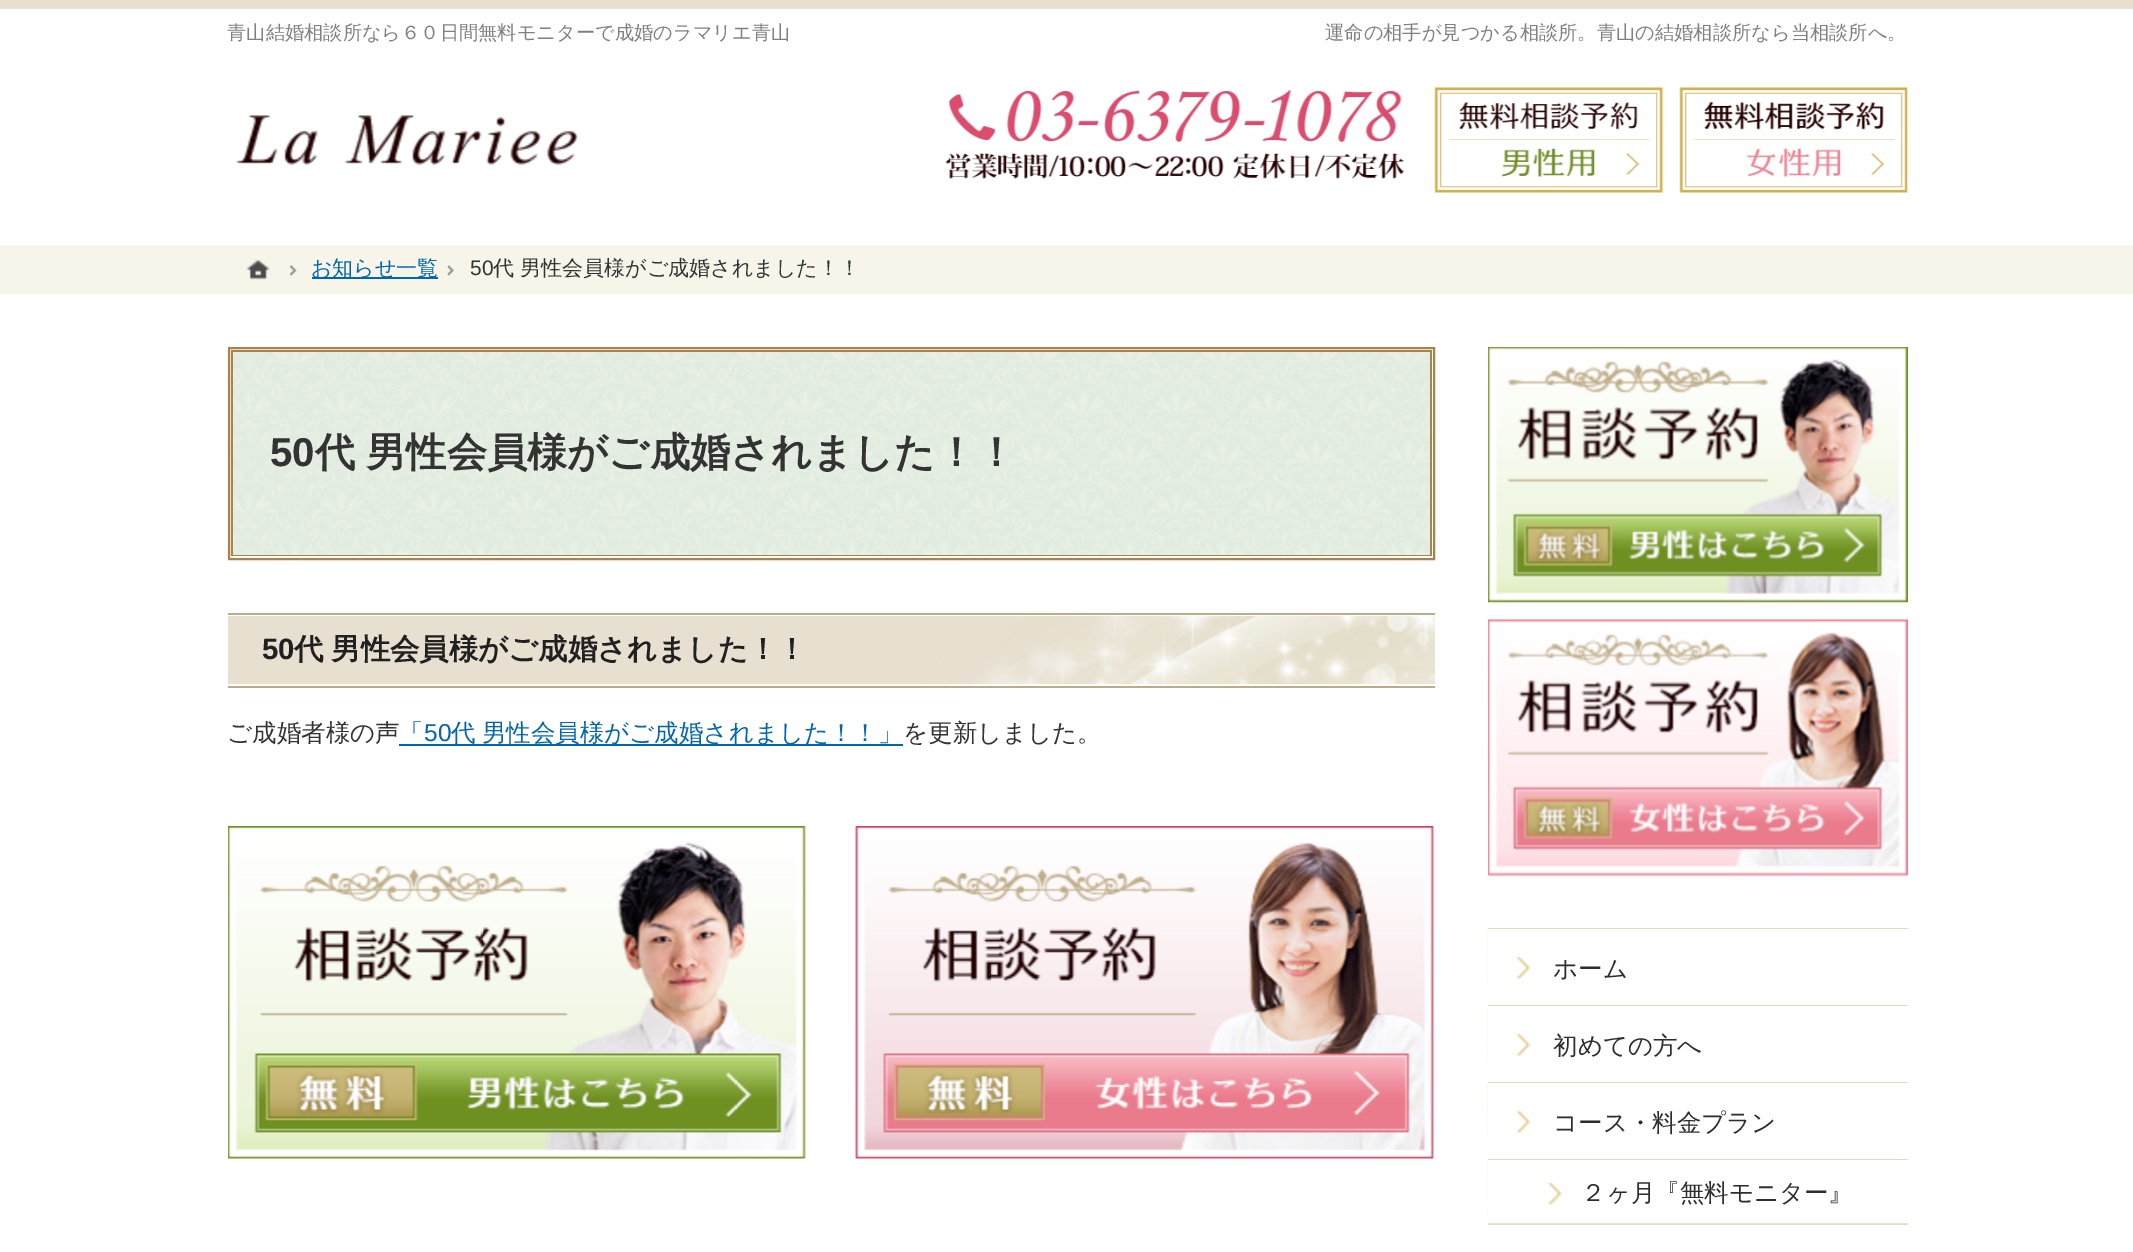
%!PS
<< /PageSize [2133 1252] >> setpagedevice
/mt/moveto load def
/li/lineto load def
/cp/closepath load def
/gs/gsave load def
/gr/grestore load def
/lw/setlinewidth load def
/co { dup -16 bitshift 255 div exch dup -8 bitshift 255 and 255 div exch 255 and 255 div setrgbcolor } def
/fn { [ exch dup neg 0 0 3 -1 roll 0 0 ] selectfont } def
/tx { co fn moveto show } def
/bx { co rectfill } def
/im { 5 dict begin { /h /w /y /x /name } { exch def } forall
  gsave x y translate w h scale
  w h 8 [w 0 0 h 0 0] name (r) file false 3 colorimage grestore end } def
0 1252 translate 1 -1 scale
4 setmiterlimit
0 0 2133 1252 16#FFFFFF bx
0 0 2133 9 16#E7DFCF bx
(media/1.raw) 236 115 343 50 im
(media/2.raw) 227 347 1203 213 im
gs
229 348 1204 210 rectclip
16#AB824A co
56 175 mt 1606 175 li 1606 732 li 56 732 li cp 226 345 mt 1430 345 li 1430 555 li 226 555 li cp eofill
56 175 mt 1606 175 li 1606 732 li 56 732 li cp 233 352 mt 1437 352 li 1437 562 li 233 562 li cp eofill
16#FFFFFF co
56 175 mt 1606 175 li 1606 732 li 56 732 li cp 228 346 mt 1432 346 li 1432 556 li 228 556 li cp eofill
56 175 mt 1606 175 li 1606 732 li 56 732 li cp 231 350 mt 1435 350 li 1435 560 li 231 560 li cp eofill
gr
16#AB824A co
2 lw
229 348 1205 211 rectstroke
(media/3.raw) 228 616 1207 68 im
228 613 1207 2 16#BEAC89 bx
228 686 1207 2 16#BEAC89 bx
399 744 504 2 16#0066B0 bx
(media/4.raw) 228 826 578 333 im
(media/5.raw) 855 826 579 333 im
(media/6.raw) 1488 347 420 256 im
(media/7.raw) 1488 619 420 257 im
1488 928 420 1 16#D7E2C2 bx
(media/8.raw) 1487 929 1 75 im
(media/9.raw) 1516 956 15 23 im
(media/10.raw) 1487 1005 1 76 im
1488 1005 420 1 16#D7E2C2 bx
(media/9.raw) 1516 1033 15 23 im
(media/11.raw) 1487 1083 1 75 im
1488 1082 420 1 16#D7E2C2 bx
(media/9.raw) 1516 1110 15 23 im
1488 1159 420 1 16#D7E2C2 bx
1488 1223 420 2 16#D7E2C2 bx
(media/12.raw) 1487 1160 421 64 im
1488 1160 420 63 16#FFFFFF bx
(media/13.raw) 1548 1182 14 23 im
(media/14.raw) 945 90 460 89 im
(media/15.raw) 1434 87 230 106 im
(media/16.raw) 1679 87 229 106 im
0 245 2133 49 16#F7F4E9 bx
(media/17.raw) 246 259 24 21 im
(media/18.raw) 290 265 7 11 im
312 277 126 2 16#0066B0 bx
(media/19.raw) 447 265 7 11 im
(青山結婚相談所なら６０日間無料モニターで成婚のラマリエ青山) 227 39 /WenQuanYiZenHei-Medium 19.25 16#808080 tx
(運命の相手が見つかる相談所。青山の結婚相談所なら当相談所へ。) 1325 39 /WenQuanYiZenHei-Medium 19.25 16#808080 tx
(50) 270 466 /LiberationSans-Bold 40.2 16#333333 tx
/WenQuanYiZenHei-Bold 40.2 fn
315 466 mt -1 0 32 (代 男性会員様がご成婚されました！！) widthshow
(50) 262 659 /LiberationSans-Bold 29.4 16#202020 tx
/WenQuanYiZenHei-Bold 29.4 fn
294 659 mt -1 0 32 (代 男性会員様がご成婚されました！！) widthshow
(ご成婚者様の声) 227 741 /WenQuanYiZenHei-Medium 24.5 16#333333 tx
(「) 399 741 /WenQuanYiZenHei-Medium 24.5 16#0066B0 tx
(50) 424 741 /LiberationSans-Regular 24.5 16#0066B0 tx
/WenQuanYiZenHei-Medium 24.5 fn
451 741 mt -1 0 32 (代 男性会員様がご成婚されました！！」) widthshow
(を更新しました。) 903 741 /WenQuanYiZenHei-Medium 24.5 16#333333 tx
(ホーム) 1553 977 /WenQuanYiZenHei-Medium 24.5 16#2D2D2D tx
(初めての方へ) 1553 1054 /WenQuanYiZenHei-Medium 24.5 16#2D2D2D tx
(コース・料金プラン) 1553 1131 /WenQuanYiZenHei-Medium 24.5 16#2D2D2D tx
(２ヶ月『無料モニター』) 1581 1201 /WenQuanYiZenHei-Medium 24.5 16#2D2D2D tx
(お知らせ一覧) 311 275 /WenQuanYiZenHei-Medium 21 16#0066B0 tx
(50) 470 275 /LiberationSans-Regular 21 16#333333 tx
(代 男性会員様がご成婚されました！！) 493 275 /WenQuanYiZenHei-Medium 21 16#333333 tx
showpage
